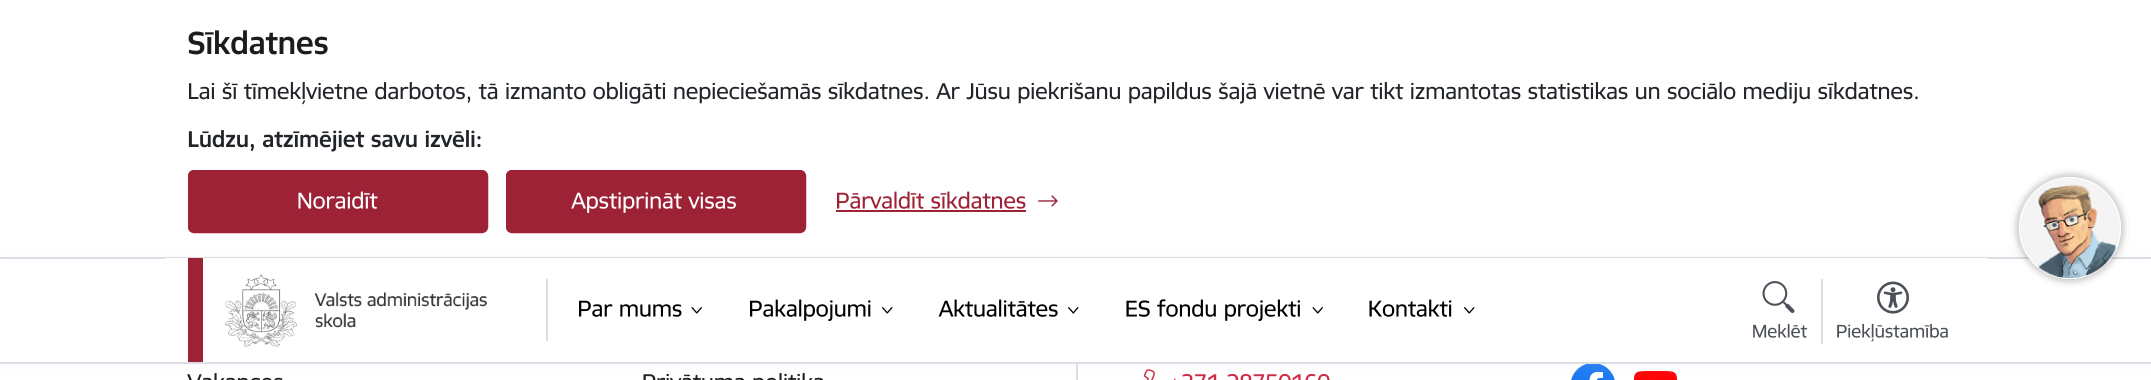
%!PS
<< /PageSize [2151 380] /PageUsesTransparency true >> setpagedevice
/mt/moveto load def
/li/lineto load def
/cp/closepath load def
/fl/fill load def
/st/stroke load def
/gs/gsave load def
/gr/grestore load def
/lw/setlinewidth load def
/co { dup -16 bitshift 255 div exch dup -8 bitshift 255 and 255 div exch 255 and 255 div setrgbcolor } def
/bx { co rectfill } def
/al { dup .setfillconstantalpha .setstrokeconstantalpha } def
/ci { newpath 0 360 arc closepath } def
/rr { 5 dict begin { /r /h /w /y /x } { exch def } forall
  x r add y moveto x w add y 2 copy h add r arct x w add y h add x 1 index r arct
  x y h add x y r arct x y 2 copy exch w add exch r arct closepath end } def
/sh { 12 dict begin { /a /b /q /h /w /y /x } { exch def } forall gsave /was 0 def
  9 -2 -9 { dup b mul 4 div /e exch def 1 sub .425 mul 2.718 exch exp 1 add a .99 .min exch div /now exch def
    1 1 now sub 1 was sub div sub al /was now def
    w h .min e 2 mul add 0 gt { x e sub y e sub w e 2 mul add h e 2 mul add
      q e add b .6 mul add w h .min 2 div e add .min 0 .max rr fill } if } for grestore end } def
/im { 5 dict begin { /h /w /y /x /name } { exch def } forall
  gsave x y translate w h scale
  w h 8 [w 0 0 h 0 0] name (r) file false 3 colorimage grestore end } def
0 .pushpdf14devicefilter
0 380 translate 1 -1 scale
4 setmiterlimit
0 0 2151 380 16#FFFFFF bx
0 257 2151 2 16#DBDEE4 bx
(media/1.raw) 188 30 140 25 im
(media/2.raw) 189 82 1729 23 im
(media/3.raw) 188 130 293 22 im
16#9D2235 co
189 171 298 61 5 rr gs fl gr
2 lw
st
(media/4.raw) 298 191 80 18 im
507 171 298 61 5 rr gs fl gr
st
(media/5.raw) 571 192 165 21 im
(media/6.raw) 837 191 189 18 im
(media/7.raw) 1038 195 20 12 im
836 210 190 2 16#9D2235 bx
(media/21.raw) 187 373 96 7 im
(media/22.raw) 643 373 180 7 im
1076 364 2 16 16#DBDEE4 bx
(media/23.raw) 1143 369 12 11 im
(media/24.raw) 1174 373 156 7 im
(media/25.raw) 1571 364 44 16 im
(media/26.raw) 1634 371 44 9 im
gs
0 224 mt 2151 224 li 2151 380 li 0 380 li cp 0 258 mt 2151 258 li 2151 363 li 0 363 li cp eoclip newpath
0 258 2151 105 0 11 .2 sh
gr
0 362 2151 2 16#DBDEE4 bx
165 258 1823 1 16#FFFFFF bx
188 258 15 104 16#9D2235 bx
(media/8.raw) 225 274 262 73 im
546 279 2 62 16#DBDEE4 bx
(media/9.raw) 579 300 103 17 im
(media/10.raw) 691 307 11 7 im
(media/11.raw) 750 299 121 23 im
(media/12.raw) 882 307 11 7 im
(media/13.raw) 938 299 120 18 im
(media/12.raw) 1068 307 11 7 im
(media/14.raw) 1126 299 175 23 im
(media/10.raw) 1312 307 11 7 im
(media/15.raw) 1369 299 83 18 im
(media/12.raw) 1464 307 11 7 im
(media/16.raw) 1762 281 33 32 im
(media/17.raw) 1753 323 55 15 im
1821 279 2 65 16#DBDEE4 bx
(media/18.raw) 1877 281 32 33 im
(media/19.raw) 1837 323 111 19 im
16#000000 co
2016 174 108 108 54 3 .2 sh
16#FFFFFF co
2070 228 51 ci fl
(media/20.raw) 2020 178 100 101 im
.poppdf14devicefilter showpage
